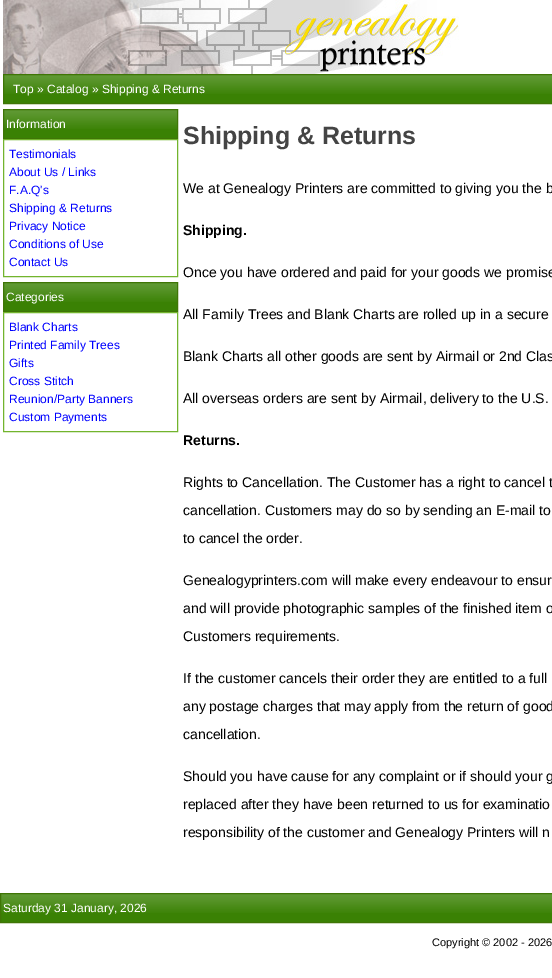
%!PS
<< /PageSize [552 978] >> setpagedevice
/co { dup -16 bitshift 255 div exch dup -8 bitshift 255 and 255 div exch 255 and 255 div setrgbcolor } def
/fn { [ exch dup neg 0 0 3 -1 roll 0 0 ] selectfont } def
/tx { co fn moveto show } def
/bx { co rectfill } def
/im { 5 dict begin { /h /w /y /x /name } { exch def } forall
  gsave x y translate w h scale
  w h 8 [w 0 0 h 0 0] name (r) file false 3 colorimage grestore end } def
0 978 translate 1 -1 scale
4 setmiterlimit
0 0 552 978 16#FFFFFF bx
(media/1.raw) 3 0 456 74 im
4 94 548 9 16#3A8104 bx
(media/2.raw) 4 75 548 19 im
16#3F7506 co
3.5 74.5 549 29 rectstroke
4 129 173 9 16#3A8104 bx
(media/3.raw) 4 110 173 19 im
16#3F7506 co
3.5 109.5 174 29 rectstroke
16#72B42D co
3.5 139.5 174 137 rectstroke
4 302 173 9 16#3A8104 bx
(media/3.raw) 4 283 173 19 im
16#3F7506 co
3.5 282.5 174 29 rectstroke
16#72B42D co
3.5 312.5 174 119 rectstroke
1 913 551 9 16#3A8104 bx
(media/4.raw) 1 894 551 19 im
16#3F7506 co
.5 893.5 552 29 rectstroke
(Top » Catalog » Shipping & Returns) 13 93 /LiberationSans-Regular 12 16#FFFFFF tx
(Information) 6 128 /LiberationSans-Regular 12 16#FFFFFF tx
(Testimonials) 9 158 /LiberationSans-Regular 12 16#0000FF tx
(About Us / Links) 9 176 /LiberationSans-Regular 12 16#0000FF tx
(F.A.Q's) 9 194 /LiberationSans-Regular 12 16#0000FF tx
(Shipping & Returns) 9 212 /LiberationSans-Regular 12 16#0000FF tx
(Privacy Notice) 9 230 /LiberationSans-Regular 12 16#0000FF tx
(Conditions of Use) 9 248 /LiberationSans-Regular 12 16#0000FF tx
(Contact Us) 9 266 /LiberationSans-Regular 12 16#0000FF tx
(Categories) 6 301 /LiberationSans-Regular 12 16#FFFFFF tx
(Blank Charts) 9 331 /LiberationSans-Regular 12 16#0000FF tx
(Printed Family Trees) 9 349 /LiberationSans-Regular 12 16#0000FF tx
(Gifts) 9 367 /LiberationSans-Regular 12 16#0000FF tx
(Cross Stitch) 9 385 /LiberationSans-Regular 12 16#0000FF tx
(Reunion/Party Banners) 9 403 /LiberationSans-Regular 12 16#0000FF tx
(Custom Payments) 9 421 /LiberationSans-Regular 12 16#0000FF tx
(Shipping & Returns) 183 144 /LiberationSans-Bold 25 16#444444 tx
(We at Genealogy Printers are committed to giving you the b) 183 193 /LiberationSans-Regular 14 16#000000 tx
(Shipping.) 183 235 /LiberationSans-Bold 14 16#000000 tx
(Once you have ordered and paid for your goods we promise) 183 277 /LiberationSans-Regular 14 16#000000 tx
(All Family Trees and Blank Charts are rolled up in a secure) 183 319 /LiberationSans-Regular 14 16#000000 tx
(Blank Charts all other goods are sent by Airmail or 2nd Clas) 183 361 /LiberationSans-Regular 14 16#000000 tx
(All overseas orders are sent by Airmail, delivery to the U.S.) 183 403 /LiberationSans-Regular 14 16#000000 tx
(Returns.) 183 445 /LiberationSans-Bold 14 16#000000 tx
(Rights to Cancellation. The Customer has a right to cancel t) 183 487 /LiberationSans-Regular 14 16#000000 tx
(cancellation. Customers may do so by sending an E-mail to) 183 515 /LiberationSans-Regular 14 16#000000 tx
(to cancel the order.) 183 543 /LiberationSans-Regular 14 16#000000 tx
(Genealogyprinters.com will make every endeavour to ensur) 183 585 /LiberationSans-Regular 14 16#000000 tx
(and will provide photographic samples of the finished item o) 183 613 /LiberationSans-Regular 14 16#000000 tx
(Customers requirements.) 183 641 /LiberationSans-Regular 14 16#000000 tx
(If the customer cancels their order they are entitled to a full) 183 683 /LiberationSans-Regular 14 16#000000 tx
(any postage charges that may apply from the return of good) 183 711 /LiberationSans-Regular 14 16#000000 tx
(cancellation.) 183 739 /LiberationSans-Regular 14 16#000000 tx
(Should you have cause for any complaint or if should your g) 183 781 /LiberationSans-Regular 14 16#000000 tx
(replaced after they have been returned to us for examinatio) 183 809 /LiberationSans-Regular 14 16#000000 tx
(responsibility of the customer and Genealogy Printers will n) 183 837 /LiberationSans-Regular 14 16#000000 tx
(Saturday 31 January, 2026) 3 912 /LiberationSans-Regular 12 16#FFFFFF tx
(Copyright © 2002 - 2026) 432 946 /LiberationSans-Regular 11 16#000000 tx
showpage
